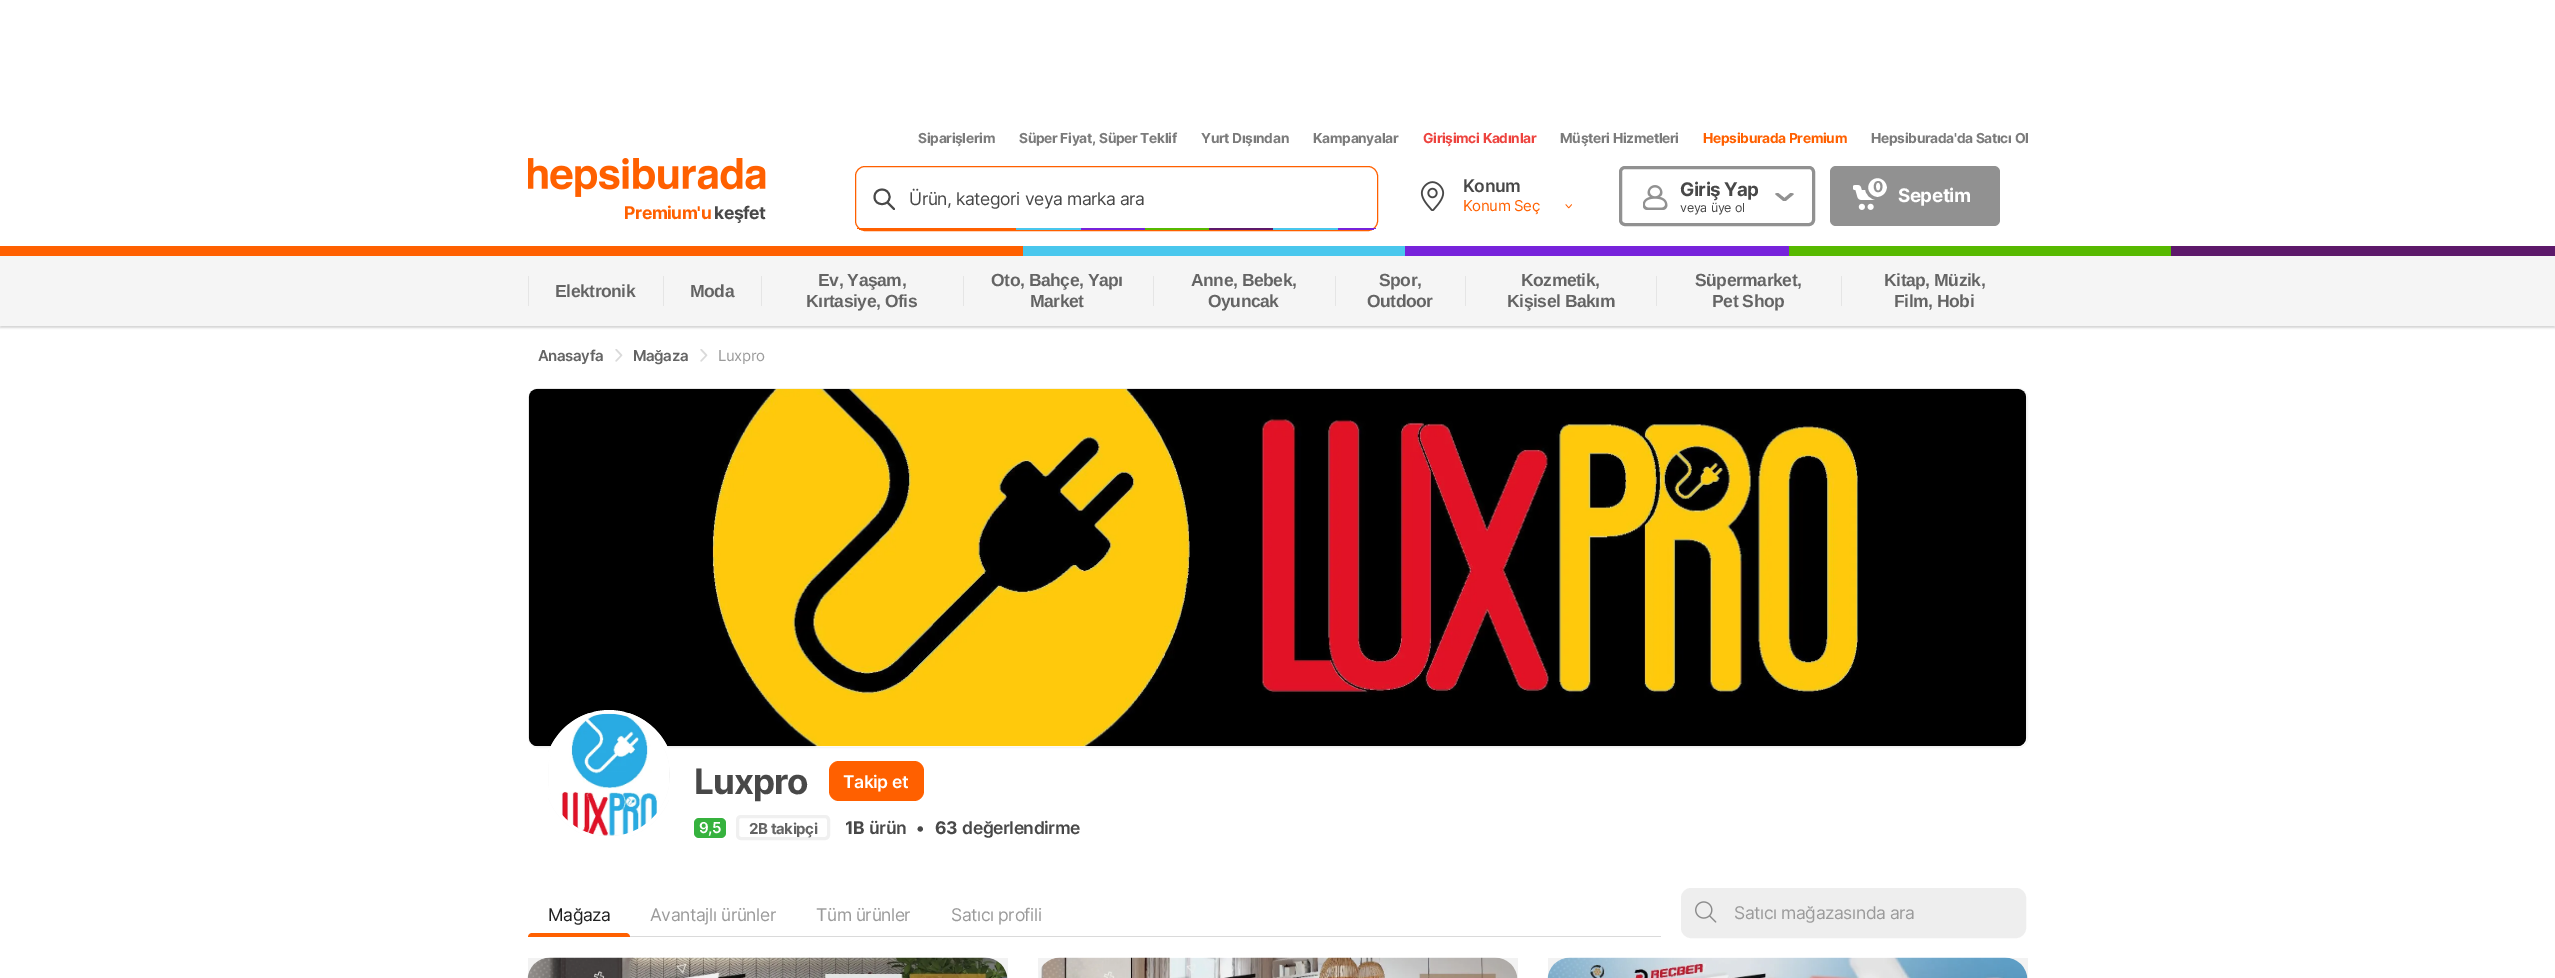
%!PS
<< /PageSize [2555 978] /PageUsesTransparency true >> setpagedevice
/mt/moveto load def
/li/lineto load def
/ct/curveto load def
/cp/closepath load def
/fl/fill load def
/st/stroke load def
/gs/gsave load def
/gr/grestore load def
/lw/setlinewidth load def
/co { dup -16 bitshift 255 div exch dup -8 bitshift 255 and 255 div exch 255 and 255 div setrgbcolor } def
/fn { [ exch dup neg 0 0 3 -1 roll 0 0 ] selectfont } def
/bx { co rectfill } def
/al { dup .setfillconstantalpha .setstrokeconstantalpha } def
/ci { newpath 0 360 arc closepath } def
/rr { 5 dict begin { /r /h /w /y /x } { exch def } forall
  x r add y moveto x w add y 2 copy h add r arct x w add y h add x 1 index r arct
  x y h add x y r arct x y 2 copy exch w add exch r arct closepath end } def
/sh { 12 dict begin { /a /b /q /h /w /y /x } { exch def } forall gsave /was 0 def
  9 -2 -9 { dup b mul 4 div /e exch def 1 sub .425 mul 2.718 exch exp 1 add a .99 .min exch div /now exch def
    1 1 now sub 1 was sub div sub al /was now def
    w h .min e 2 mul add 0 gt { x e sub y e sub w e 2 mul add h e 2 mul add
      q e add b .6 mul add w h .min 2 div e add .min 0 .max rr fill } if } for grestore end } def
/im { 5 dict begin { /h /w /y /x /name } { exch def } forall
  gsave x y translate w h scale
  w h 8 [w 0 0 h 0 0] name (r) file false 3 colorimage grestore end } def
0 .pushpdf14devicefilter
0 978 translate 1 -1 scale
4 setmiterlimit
0 0 2555 978 16#FFFFFF bx
16#FF6000 co
855.5 166.5 522 64 9.5 rr st
16#484848 co
1.9 lw
1 setlinecap
1 setlinejoin
894 209 mt 887.5 202.5 li 889.5 197 mt 889.5 206.5 874.5 206.5 874.5 197 ct 874.5 187 889.5 187 889.5 197 ct cp st
gs
855 166 523 65 10 rr clip newpath
855 228 161 2 16#FF6000 bx
gr
1016 228 65 2 16#49C7ED bx
1081 228 64 2 16#7723DB bx
1145 228 64 2 16#57B900 bx
1209 228 64 2 16#5D196A bx
1273 228 65 2 16#49C7ED bx
gs
855 166 523 65 10 rr clip newpath
1338 228 40 2 16#7723DB bx
gr
(media/1.raw) 1420 181 25 30 im
(media/2.raw) 1565 204 7 5 im
16#919191 co
3 lw
0 setlinecap
0 setlinejoin
1620.5 167.5 193 57 4.5 rr st
(media/3.raw) 1643 185 25 25 im
gs
1775 193 19 8 rectclip
1794 194 mt 1791 192.5 li 1784.5 198 li 1777.5 192.5 li 1775 194 li 1784.5 202 li cp fl
gr
1830 166 170 60 6 rr fl
(media/4.raw) 1853 185 23 25 im
16#FFFFFF co
1877.5 187.5 11 ci gs fl gr
16#919191 co
st
(media/5.raw) 528 158 238 39 im
16#000000 co
0 258 2555 70 0 1 .16 sh
0 246 1023 10 16#FF6000 bx
1023 246 382 10 16#49C7ED bx
1405 246 384 10 16#7723DB bx
1789 246 382 10 16#57B900 bx
2171 246 384 10 16#5D196A bx
0 256 2555 70 16#F5F5F5 bx
528 276 1 30 16#E5E5E5 bx
663 276 1 30 16#E5E5E5 bx
761 276 1 30 16#E5E5E5 bx
963 276 1 30 16#E5E5E5 bx
1153 276 1 30 16#E5E5E5 bx
1335 276 1 30 16#E5E5E5 bx
1465 276 1 30 16#E5E5E5 bx
1656 276 1 30 16#E5E5E5 bx
1841 276 1 30 16#E5E5E5 bx
(media/6.raw) 615 349 8 13 im
(media/6.raw) 700 349 8 13 im
16#F5F5F5 co
1 lw
528.5 388.5 1499 359 9.5 rr st
(media/7.raw) 528 388 1499 359 im
609 775 63 ci gs fl gr
16#FFFFFF co
4 lw
st
(media/8.raw) 548 713 121 123 im
16#FF6000 co
829 761 95 40 10 rr fl
16#36B23E co
694 818 32 20 5 rr fl
16#F0F0F0 co
3 lw
737.5 816.5 91 22 3.5 rr st
528 936 1133 1 16#DADADA bx
16#FF6000 co
532 933 mt 626 933 li 628 933 630 935 630 937 ct 528 937 li 528 935 530 933 532 933 ct cp fl
16#EEEEEE co
1682.5 889.5 342 47 8.5 rr gs fl gr
st
(media/9.raw) 1695 901 22 22 im
(media/10.raw) 527 957 481 21 im
0.05 al
528 958 480 20 16#000000 bx
1 al
(media/11.raw) 1039 957 479 21 im
0.05 al
1038 958 480 20 16#000000 bx
1 al
(media/12.raw) 1547 957 481 21 im
0.05 al
1548 958 480 20 16#000000 bx
/Inter-Bold 13.75 fn
1 al
16#7B7B7B co
918 143 mt -.3 0 (Siparişlerim) ashow
1019 143 mt -.3 0 (Süper Fiyat, Süper Teklif) ashow
1201 143 mt -.3 0 (Yurt Dışından) ashow
1313 143 mt -.3 0 (Kampanyalar) ashow
16#ED433E co
1423 143 mt -.3 0 (Girişimci Kadınlar) ashow
16#7B7B7B co
1560 143 mt -.3 0 (Müşteri Hizmetleri) ashow
16#FF6000 co
1703 143 mt -.3 0 (Hepsiburada Premium) ashow
16#7B7B7B co
1871 143 mt -.3 0 (Hepsiburada'da Satıcı Ol) ashow
/Inter-Regular 17.5 fn
16#484848 co
909 205 mt -.45 0 (Ürün, kategori veya marka ara) ashow
/Inter-SemiBold 17.5 fn
1463 192 mt -.45 0 (Konum) ashow
/Inter-Regular 15 fn
16#FF6000 co
1463 211 mt -.4 0 (Konum Seç) ashow
/Inter-Bold 18.75 fn
16#484848 co
1680 196 mt -.5 0 (Giriş Yap) ashow
/Inter-Regular 12.5 fn
1680 212 mt -.25 0 (veya üye ol) ashow
/Inter-Bold 15 fn
16#919191 co
1873 192 mt -.4 0 (0) ashow
/Inter-Bold 18.75 fn
16#FFFFFF co
1898 202 mt -.5 0 (Sepetim) ashow
/Inter-Bold 17.5 fn
16#FF6000 co
624 219 mt -.45 0 (Premium'u) ashow
16#484848 co
714 219 mt -.45 0 (keşfet) ashow
/LiberationSans-Bold 17.5 fn
16#646464 co
555 297 mt -.45 0 (Elektronik) ashow
690 297 mt -.45 0 (Moda) ashow
818 286 mt -.45 0 (Ev, Yaşam,) ashow
806 307 mt -.45 0 (Kırtasiye, Ofis) ashow
991 286 mt -.45 0 (Oto, Bahçe, Yapı) ashow
1030 307 mt -.45 0 (Market) ashow
1191 286 mt -.45 0 (Anne, Bebek,) ashow
1208 307 mt -.45 0 (Oyuncak) ashow
1379 286 mt -.45 0 (Spor,) ashow
1367 307 mt -.45 0 (Outdoor) ashow
1521 286 mt -.45 0 (Kozmetik,) ashow
1507 307 mt -.45 0 (Kişisel Bakım) ashow
1695 286 mt -.45 0 (Süpermarket,) ashow
1712 307 mt -.45 0 (Pet Shop) ashow
1884 286 mt -.45 0 (Kitap, Müzik,) ashow
1894 307 mt -.45 0 (Film, Hobi) ashow
/Inter-SemiBold 15 fn
538 361 mt -.4 0 (Anasayfa) ashow
633 361 mt -.4 0 (Mağaza) ashow
/Inter-Regular 15 fn
16#9B9B9B co
718 361 mt -.4 0 (Luxpro) ashow
/Inter-Bold 35 fn
16#484848 co
694 794 mt -1 0 (Luxpro) ashow
/Inter-SemiBold 17.5 fn
16#FFFFFF co
843 788 mt -.45 0 (Takip et) ashow
/Inter-SemiBold 15 fn
699 833 mt -.4 0 (9,5) ashow
/Inter-Bold 15 fn
16#646464 co
749 834 mt -.4 0 (2B takipçi) ashow
/Inter-Bold 17.5 fn
16#484848 co
845 834 mt -.45 0 (1B) ashow
/Inter-SemiBold 17.5 fn
869 834 mt -.45 0 (ürün) ashow
916 834 mt -.45 0 (•) ashow
/Inter-Bold 17.5 fn
935 834 mt -.45 0 (63) ashow
/Inter-SemiBold 17.5 fn
962 834 mt -.45 0 (değerlendirme) ashow
/Inter-Regular 17.5 fn
16#212121 co
548 921 mt -.45 0 (Mağaza) ashow
16#9B9B9B co
650 921 mt -.45 0 (Avantajlı ürünler) ashow
816 921 mt -.45 0 (Tüm ürünler) ashow
951 921 mt -.45 0 (Satıcı profili) ashow
1734 919 mt -.45 0 (Satıcı mağazasında ara) ashow
.poppdf14devicefilter showpage
